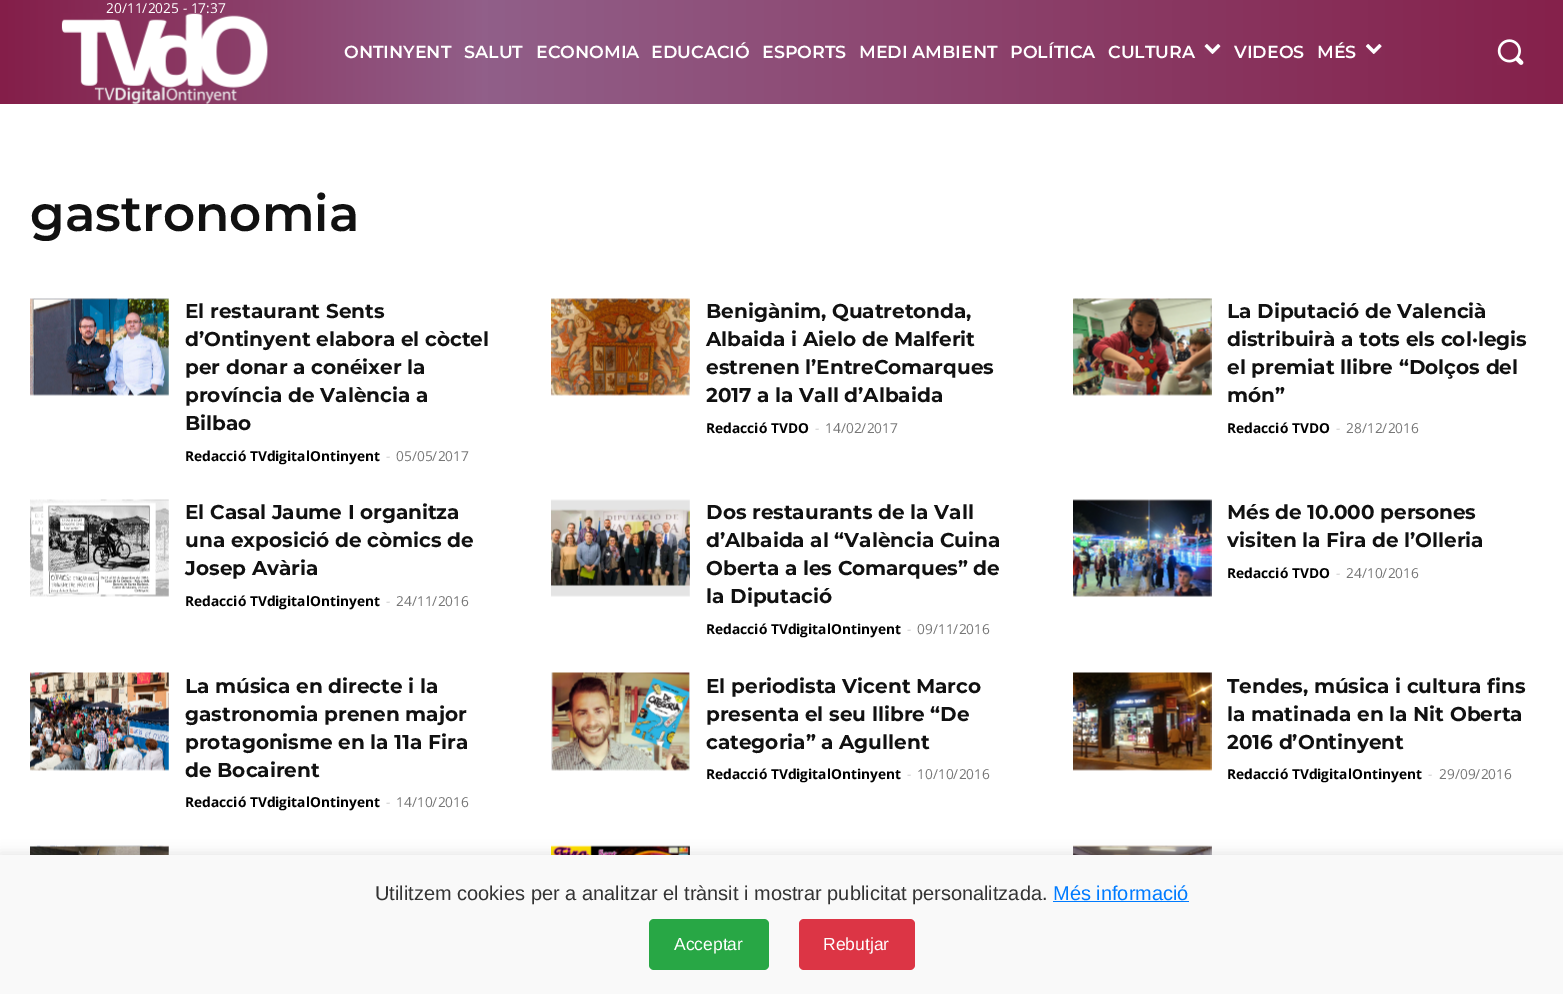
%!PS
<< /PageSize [1563 994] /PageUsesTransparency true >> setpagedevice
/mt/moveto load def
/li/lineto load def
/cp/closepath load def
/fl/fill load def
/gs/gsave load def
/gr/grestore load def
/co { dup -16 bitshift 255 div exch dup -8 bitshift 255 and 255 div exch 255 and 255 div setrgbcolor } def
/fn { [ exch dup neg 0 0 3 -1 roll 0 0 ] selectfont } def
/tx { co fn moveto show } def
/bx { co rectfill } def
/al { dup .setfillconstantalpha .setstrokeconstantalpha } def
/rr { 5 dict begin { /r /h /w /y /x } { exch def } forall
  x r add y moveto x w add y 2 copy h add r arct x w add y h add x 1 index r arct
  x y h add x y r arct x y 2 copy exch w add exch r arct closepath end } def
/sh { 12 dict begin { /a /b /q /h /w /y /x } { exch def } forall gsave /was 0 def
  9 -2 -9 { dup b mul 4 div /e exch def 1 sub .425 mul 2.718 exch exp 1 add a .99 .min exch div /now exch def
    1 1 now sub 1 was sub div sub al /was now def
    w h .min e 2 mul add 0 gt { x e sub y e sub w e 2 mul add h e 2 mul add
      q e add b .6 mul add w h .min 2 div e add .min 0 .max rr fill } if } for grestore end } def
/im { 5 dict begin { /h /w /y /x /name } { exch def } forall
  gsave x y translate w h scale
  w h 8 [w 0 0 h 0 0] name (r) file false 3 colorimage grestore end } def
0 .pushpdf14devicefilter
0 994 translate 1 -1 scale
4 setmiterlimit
0 0 1563 994 16#FFFFFF bx
gs 0 0 mt 1563 0 li 1563 104 li 0 104 li cp clip newpath
<< /ShadingType 2 /ColorSpace /DeviceRGB /Coords [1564 52 0 52] /Extend [true true] /Function << /FunctionType 3 /Domain [0 1] /Functions [<< /FunctionType 2 /Domain [0 1] /C0 [.522 .129 .294] /C1 [.569 .373 .537] /N 1 >> << /FunctionType 2 /Domain [0 1] /C0 [.569 .373 .537] /C1 [.518 .118 .286] /N 1 >>] /Bounds [.69] /Encode [0 1 0 1] >> >> shfill gr
(media/2.raw) 1204 44 17 10 im
(media/3.raw) 1365 44 17 10 im
(media/4.raw) 1497 39 27 26 im
(media/5.raw) 30 298 139 98 im
(media/6.raw) 551 298 139 98 im
(media/7.raw) 1073 298 139 98 im
(media/8.raw) 30 499 139 98 im
(media/9.raw) 551 499 139 98 im
(media/10.raw) 1073 499 139 98 im
(media/11.raw) 30 672 139 99 im
(media/12.raw) 551 672 139 99 im
(media/13.raw) 1073 672 139 99 im
(media/14.raw) 30 845 139 10 im
(media/15.raw) 551 845 139 10 im
(media/16.raw) 1073 845 139 10 im
16#000000 co
0 853 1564 140 0 6 .1 sh
0 855 1563 139 16#F9F9F9 bx
1053 901 136 1 16#007BFF bx
16#28A745 co
649 919 120 51 5 rr fl
16#DC3545 co
799 919 116 51 5 rr fl
(20/11/2025 - 17:37) 106 13 /OpenSans-Regular 13.75 16#FFFFFF tx
(media/1.raw) 61 13 207 91 im
(ONTINYENT) 344 58 /Montserrat-SemiBold 17.5 16#FFFFFF tx
(SALUT) 464 58 /Montserrat-SemiBold 17.5 16#FFFFFF tx
(ECONOMIA) 536 58 /Montserrat-SemiBold 17.5 16#FFFFFF tx
(EDUCACIÓ) 651 58 /Montserrat-SemiBold 17.5 16#FFFFFF tx
(ESPORTS) 762 58 /Montserrat-SemiBold 17.5 16#FFFFFF tx
(MEDI AMBIENT) 859 58 /Montserrat-SemiBold 17.5 16#FFFFFF tx
(POLÍTICA) 1010 58 /Montserrat-SemiBold 17.5 16#FFFFFF tx
(CULTURA) 1108 58 /Montserrat-SemiBold 17.5 16#FFFFFF tx
(VIDEOS) 1234 58 /Montserrat-SemiBold 17.5 16#FFFFFF tx
(MÉS) 1317 58 /Montserrat-SemiBold 17.5 16#FFFFFF tx
(gastronomia) 30 231 /Montserrat-SemiBold 50 16#111111 tx
(El restaurant Sents) 185 318 /Montserrat-Bold 20 16#111111 tx
(d’Ontinyent elabora el còctel) 185 346 /Montserrat-Bold 20 16#111111 tx
(per donar a conéixer la) 185 374 /Montserrat-Bold 20 16#111111 tx
(província de València a) 185 402 /Montserrat-Bold 20 16#111111 tx
(Bilbao) 185 430 /Montserrat-Bold 20 16#111111 tx
(Redacció TVdigitalOntinyent) 185 461 /OpenSans-Bold 13.75 16#000000 tx
(-) 386 461 /OpenSans-Regular 13.75 16#CCCCCC tx
(05/05/2017) 396 461 /OpenSans-Regular 13.75 16#767676 tx
(Benigànim, Quatretonda,) 706 318 /Montserrat-Bold 20 16#111111 tx
(Albaida i Aielo de Malferit) 706 346 /Montserrat-Bold 20 16#111111 tx
(estrenen l’EntreComarques) 706 374 /Montserrat-Bold 20 16#111111 tx
(2017 a la Vall d’Albaida) 706 402 /Montserrat-Bold 20 16#111111 tx
(Redacció TVDO) 706 433 /OpenSans-Bold 13.75 16#000000 tx
(-) 815 433 /OpenSans-Regular 13.75 16#CCCCCC tx
(14/02/2017) 825 433 /OpenSans-Regular 13.75 16#767676 tx
(La Diputació de Valencià) 1227 318 /Montserrat-Bold 20 16#111111 tx
(distribuirà a tots els col·legis) 1227 346 /Montserrat-Bold 20 16#111111 tx
(el premiat llibre “Dolços del) 1227 374 /Montserrat-Bold 20 16#111111 tx
(món”) 1227 402 /Montserrat-Bold 20 16#111111 tx
(Redacció TVDO) 1227 433 /OpenSans-Bold 13.75 16#000000 tx
(-) 1336 433 /OpenSans-Regular 13.75 16#CCCCCC tx
(28/12/2016) 1346 433 /OpenSans-Regular 13.75 16#767676 tx
(El Casal Jaume I organitza) 185 519 /Montserrat-Bold 20 16#111111 tx
(una exposició de còmics de) 185 547 /Montserrat-Bold 20 16#111111 tx
(Josep Avària) 185 575 /Montserrat-Bold 20 16#111111 tx
(Redacció TVdigitalOntinyent) 185 606 /OpenSans-Bold 13.75 16#000000 tx
(-) 386 606 /OpenSans-Regular 13.75 16#CCCCCC tx
(24/11/2016) 396 606 /OpenSans-Regular 13.75 16#767676 tx
(Dos restaurants de la Vall) 706 519 /Montserrat-Bold 20 16#111111 tx
(d’Albaida al “València Cuina) 706 547 /Montserrat-Bold 20 16#111111 tx
(Oberta a les Comarques” de) 706 575 /Montserrat-Bold 20 16#111111 tx
(la Diputació) 706 603 /Montserrat-Bold 20 16#111111 tx
(Redacció TVdigitalOntinyent) 706 634 /OpenSans-Bold 13.75 16#000000 tx
(-) 907 634 /OpenSans-Regular 13.75 16#CCCCCC tx
(09/11/2016) 917 634 /OpenSans-Regular 13.75 16#767676 tx
(Més de 10.000 persones) 1227 519 /Montserrat-Bold 20 16#111111 tx
(visiten la Fira de l’Olleria) 1227 547 /Montserrat-Bold 20 16#111111 tx
(Redacció TVDO) 1227 578 /OpenSans-Bold 13.75 16#000000 tx
(-) 1336 578 /OpenSans-Regular 13.75 16#CCCCCC tx
(24/10/2016) 1346 578 /OpenSans-Regular 13.75 16#767676 tx
(La música en directe i la) 185 693 /Montserrat-Bold 20 16#111111 tx
(gastronomia prenen major) 185 721 /Montserrat-Bold 20 16#111111 tx
(protagonisme en la 11a Fira) 185 749 /Montserrat-Bold 20 16#111111 tx
(de Bocairent) 185 777 /Montserrat-Bold 20 16#111111 tx
(Redacció TVdigitalOntinyent) 185 807 /OpenSans-Bold 13.75 16#000000 tx
(-) 386 807 /OpenSans-Regular 13.75 16#CCCCCC tx
(14/10/2016) 396 807 /OpenSans-Regular 13.75 16#767676 tx
(El periodista Vicent Marco) 706 693 /Montserrat-Bold 20 16#111111 tx
(presenta el seu llibre “De) 706 721 /Montserrat-Bold 20 16#111111 tx
(categoria” a Agullent) 706 749 /Montserrat-Bold 20 16#111111 tx
(Redacció TVdigitalOntinyent) 706 779 /OpenSans-Bold 13.75 16#000000 tx
(-) 907 779 /OpenSans-Regular 13.75 16#CCCCCC tx
(10/10/2016) 917 779 /OpenSans-Regular 13.75 16#767676 tx
(Tendes, música i cultura fins) 1227 693 /Montserrat-Bold 20 16#111111 tx
(la matinada en la Nit Oberta) 1227 721 /Montserrat-Bold 20 16#111111 tx
(2016 d’Ontinyent) 1227 749 /Montserrat-Bold 20 16#111111 tx
(Redacció TVdigitalOntinyent) 1227 779 /OpenSans-Bold 13.75 16#000000 tx
(-) 1428 779 /OpenSans-Regular 13.75 16#CCCCCC tx
(29/09/2016) 1439 779 /OpenSans-Regular 13.75 16#767676 tx
(Utilitzem cookies per a analitzar el trànsit i mostrar publicitat personalitzada.) 375 900 /LiberationSans-Regular 20 16#333333 tx
(Més informació) 1053 900 /LiberationSans-Regular 20 16#007BFF tx
(Acceptar) 674 950 /LiberationSans-Regular 17.5 16#FFFFFF tx
(Rebutjar) 823 950 /LiberationSans-Regular 17.5 16#FFFFFF tx
.poppdf14devicefilter showpage
